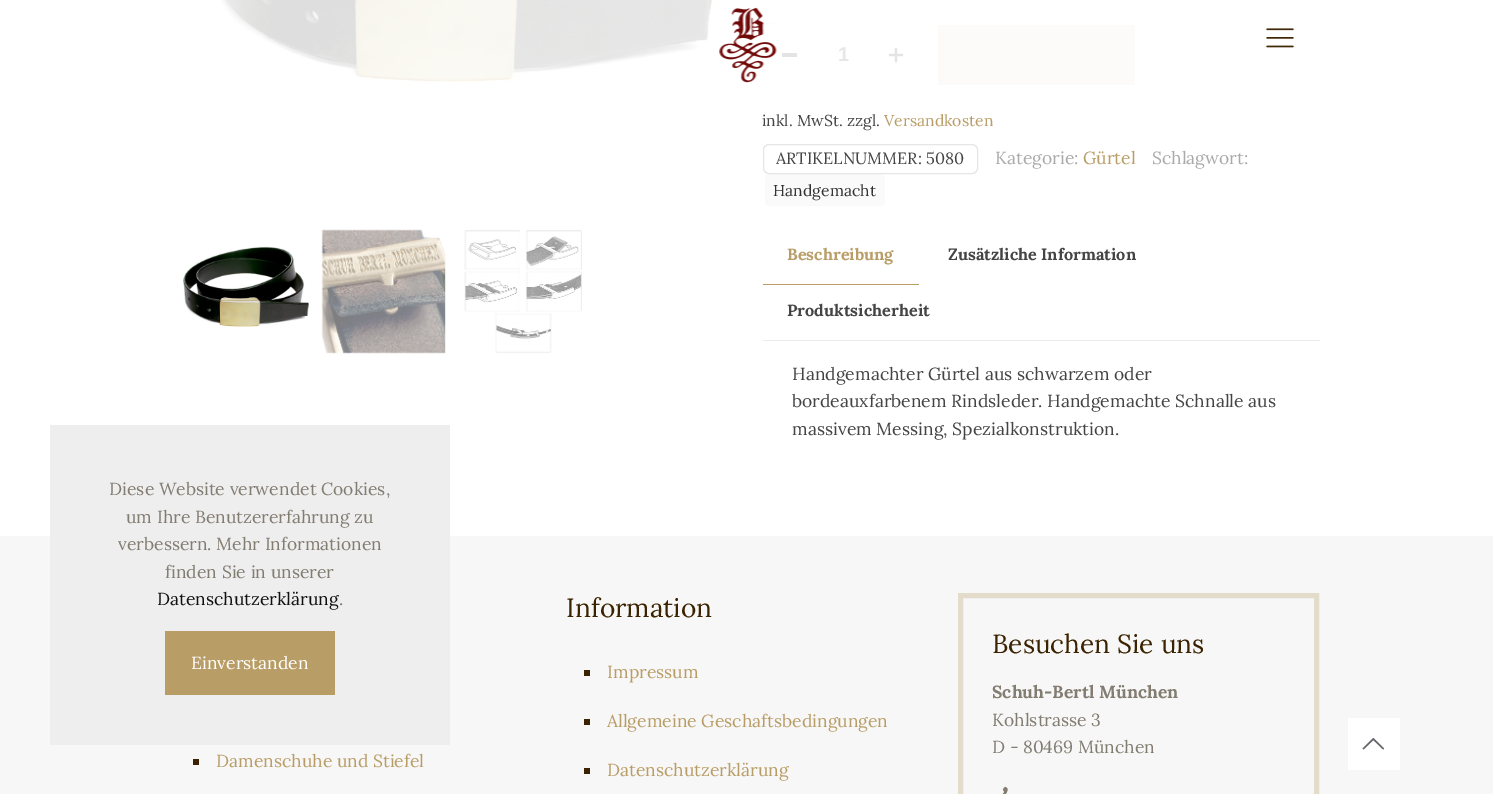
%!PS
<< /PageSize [1493 794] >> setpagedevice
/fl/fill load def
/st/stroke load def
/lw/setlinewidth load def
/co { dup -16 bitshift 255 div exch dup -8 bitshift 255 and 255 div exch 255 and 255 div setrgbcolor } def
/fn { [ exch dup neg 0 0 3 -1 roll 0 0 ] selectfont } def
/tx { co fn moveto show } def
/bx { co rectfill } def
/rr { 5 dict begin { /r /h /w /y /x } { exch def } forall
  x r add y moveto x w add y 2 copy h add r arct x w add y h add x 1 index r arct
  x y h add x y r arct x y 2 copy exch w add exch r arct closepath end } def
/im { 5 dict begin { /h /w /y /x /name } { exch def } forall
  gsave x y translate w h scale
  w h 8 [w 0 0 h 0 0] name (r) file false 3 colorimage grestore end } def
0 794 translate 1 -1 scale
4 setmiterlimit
0 0 1493 794 16#FFFFFF bx
(media/3.raw) 220 0 500 88 im
(media/1.raw) 719 7 59 76 im
(media/2.raw) 1266 28 28 20 im
(media/4.raw) 183 246 126 81 im
(media/5.raw) 321 229 125 125 im
(media/6.raw) 464 230 118 123 im
782 53 15 4 16#E4E4E4 bx
(media/7.raw) 888 47 16 16 im
938 25 197 60 16#FCFBF9 bx
16#FAFAFA co
765 174 120 32 5 rr fl
16#E6E6E6 co
763.5 144.5 214 29 5.5 rr st
763 340 557 1 16#EBEBEB bx
763 284 156 1 16#B99D66 bx
0 536 1493 258 16#F7F7F7 bx
584 670 6 6 16#3B2200 bx
584 719 6 6 16#3B2200 bx
584 768 6 6 16#3B2200 bx
16#E4DCCB co
5 lw
960.5 595.5 356 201 rectstroke
(media/8.raw) 1002 786 6 8 im
193 759 6 6 16#3B2200 bx
50 425 400 320 16#EEEEEE bx
165 631 170 64 16#B99D66 bx
1348 718 52 52 16#FFFFFF bx
(media/9.raw) 1362 738 22 12 im
(1) 838 61 /LiberationSans-Bold 20 16#E7E7E7 tx
(inkl. MwSt. zzgl.) 762 126 /Lora-Regular 15.75 16#444444 tx
(Versandkosten) 884 126 /Lora-Regular 15.75 16#B99D66 tx
(Schlagwort:) 1152 164 /Lora-Regular 17.5 16#AAAAAA tx
(Handgemacht) 773 196 /Lora-Regular 15.75 16#323232 tx
(ARTIKELNUMMER: 5080) 776 164 /Lora-Regular 16.25 16#444444 tx
(Kategorie:) 995 164 /Lora-Regular 17.5 16#AAAAAA tx
(Gürtel) 1083 164 /Lora-Regular 17.5 16#B99D66 tx
(Beschreibung) 787 260 /Lora-Bold 16.25 16#B99D66 tx
(Zusätzliche Information) 948 260 /Lora-Bold 16.25 16#444444 tx
(Produktsicherheit) 787 316 /Lora-Bold 16.25 16#444444 tx
(Handgemachter Gürtel aus schwarzem oder) 792 380 /Lora-Regular 17.5 16#444444 tx
(bordeauxfarbenem Rindsleder. Handgemachte Schnalle aus) 792 407 /Lora-Regular 17.5 16#444444 tx
(massivem Messing, Spezialkonstruktion.) 792 435 /Lora-Regular 17.5 16#444444 tx
(Information) 566 617 /Lora-Regular 26.25 16#3B2200 tx
(Impressum) 607 678 /Lora-Regular 17.5 16#B99D66 tx
(Allgemeine Geschaftsbedingungen) 607 727 /Lora-Regular 17.5 16#B99D66 tx
(Datenschutzerklärung) 607 776 /Lora-Regular 17.5 16#B99D66 tx
(Besuchen Sie uns) 992 653 /Lora-Regular 26.25 16#3B2200 tx
(Schuh-Bertl München) 992 698 /Lora-Bold 17.5 16#827C71 tx
(Kohlstrasse 3) 992 726 /Lora-Regular 17.5 16#827C71 tx
(D - 80469 München) 992 753 /Lora-Regular 17.5 16#827C71 tx
(Damenschuhe und Stiefel) 216 767 /Lora-Regular 17.5 16#B99D66 tx
(Diese Website verwendet Cookies,) 109 495 /Lora-Regular 17.5 16#827C71 tx
(um Ihre Benutzererfahrung zu) 126 523 /Lora-Regular 17.5 16#827C71 tx
(verbessern. Mehr Informationen) 118 550 /Lora-Regular 17.5 16#827C71 tx
(finden Sie in unserer) 165 578 /Lora-Regular 17.5 16#827C71 tx
(Datenschutzerklärung) 157 605 /Lora-Regular 17.5 16#111111 tx
(.) 339 605 /Lora-Regular 17.5 16#827C71 tx
(Einverstanden) 191 669 /Lora-Regular 17.5 16#FFFFFF tx
showpage
